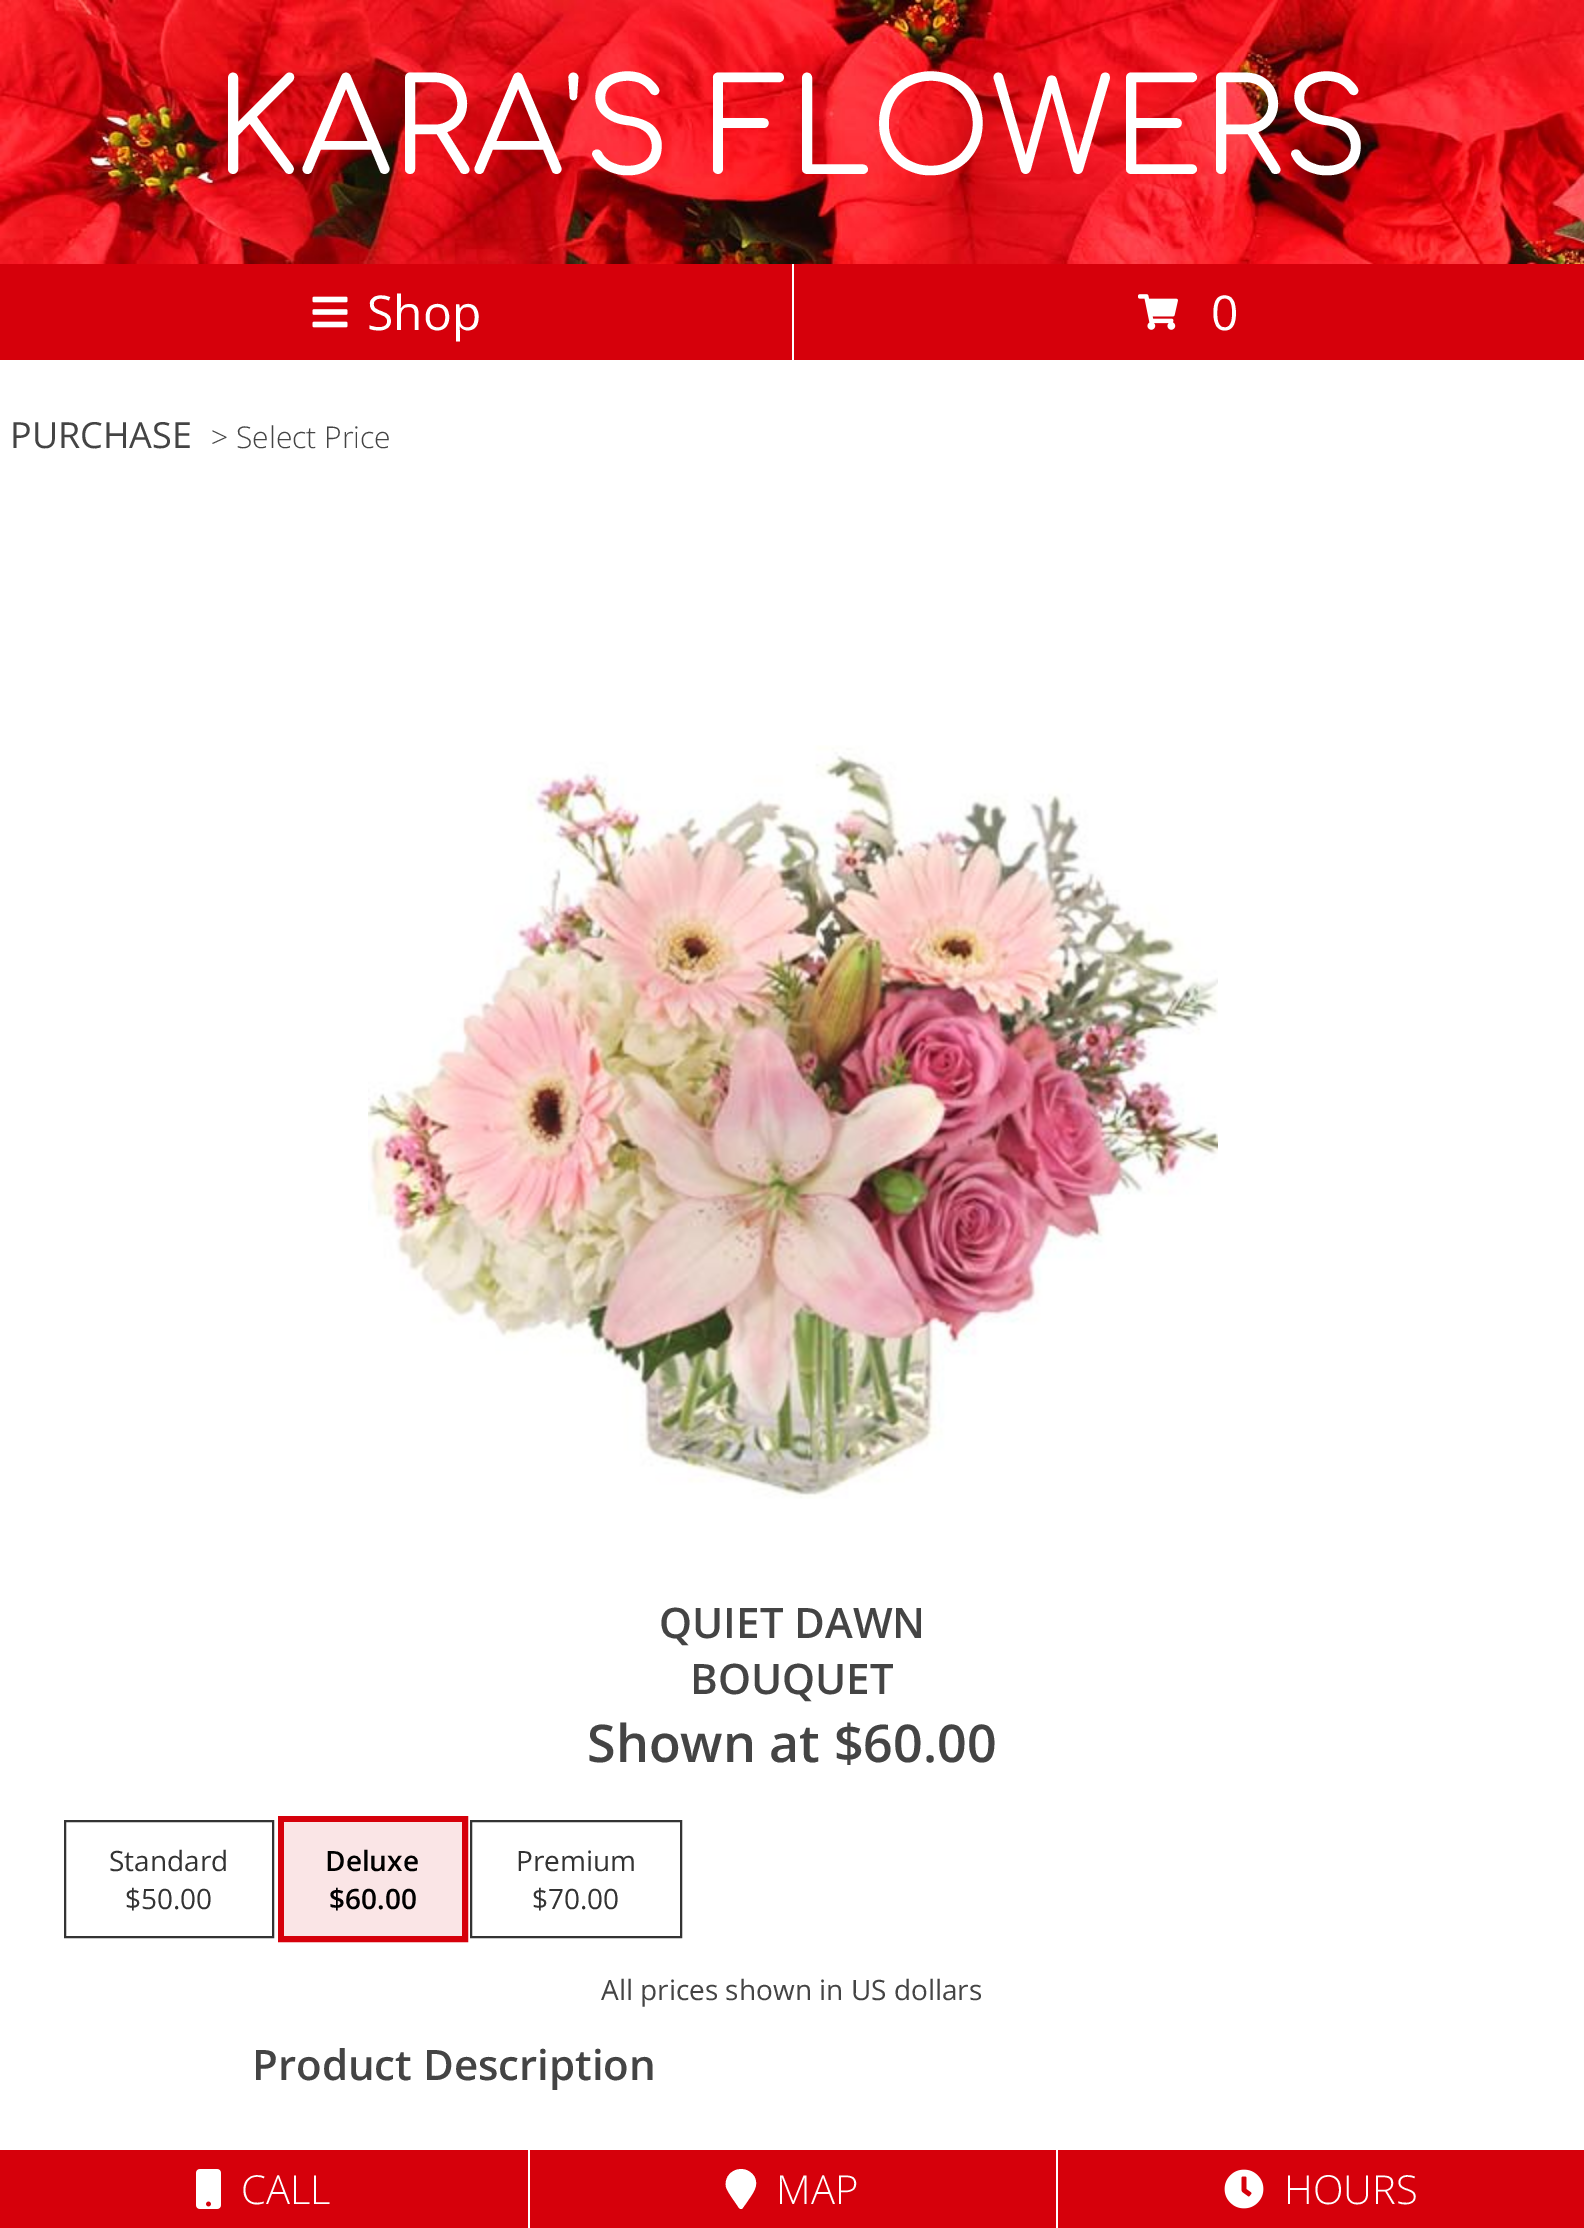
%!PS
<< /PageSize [1584 2228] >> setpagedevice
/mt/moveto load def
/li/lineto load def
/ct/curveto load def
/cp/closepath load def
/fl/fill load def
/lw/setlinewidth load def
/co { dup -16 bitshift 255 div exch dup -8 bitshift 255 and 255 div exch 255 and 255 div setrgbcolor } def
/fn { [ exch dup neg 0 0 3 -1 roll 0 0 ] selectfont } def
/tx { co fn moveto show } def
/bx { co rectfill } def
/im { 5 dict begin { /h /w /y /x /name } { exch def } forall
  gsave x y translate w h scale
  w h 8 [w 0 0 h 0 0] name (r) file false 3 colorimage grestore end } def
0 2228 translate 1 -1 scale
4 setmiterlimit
0 0 1584 2228 16#FFFFFF bx
(media/1.raw) 0 0 1584 264 im
0 264 792 96 16#D6000B bx
(media/2.raw) 312 296 36 32 im
794 264 790 96 16#D6000B bx
(media/3.raw) 1138 294 40 36 im
(media/4.raw) 368 745 850 754 im
16#333333 co
2 lw
65 1821 208 116 rectstroke
16#D6000B co
6 lw
281 1819 184 120 rectstroke
284 1822 178 114 16#FAE5E6 bx
16#333333 co
2 lw
471 1821 210 116 rectstroke
0 2150 528 78 16#D6000B bx
(media/5.raw) 196 2169 25 40 im
530 2150 526 78 16#D6000B bx
16#FFFFFF co
739 2208 mt 736 2203 728 2193 726 2187 ct 723 2171 744 2162 754 2176 ct 760 2186 752 2194 747 2202 ct 742 2209 li 741 2209 740 2209 739 2208 ct cp fl
1058 2150 526 78 16#D6000B bx
(media/6.raw) 1224 2169 40 40 im
(KARA'S FLOWERS) 215 174 /Comfortaa-Regular 130 16#FFFFFF tx
(Shop) 367 330 /OpenSans-Regular 48 16#FFFFFF tx
(0) 1211 330 /OpenSans-Regular 48 16#FFFFFF tx
(PURCHASE) 10 448 /OpenSans-Regular 36 16#444444 tx
(> Select Price) 211 448 /OpenSans-Light 30 16#444444 tx
(QUIET DAWN) 659 1638 /OpenSans-SemiBold 42 16#444444 tx
(BOUQUET) 690 1694 /OpenSans-SemiBold 42 16#444444 tx
(Shown at $60.00) 587 1762 /OpenSans-SemiBold 52 16#444444 tx
(Standard) 109 1871 /OpenSans-Regular 28 16#333333 tx
($50.00) 125 1909 /OpenSans-Regular 28 16#333333 tx
(Deluxe) 325 1871 /OpenSans-SemiBold 28 16#000000 tx
($60.00) 329 1909 /OpenSans-SemiBold 28 16#000000 tx
(Premium) 516 1871 /OpenSans-Regular 28 16#333333 tx
($70.00) 532 1909 /OpenSans-Regular 28 16#333333 tx
(All prices shown in US dollars) 601 2000 /OpenSans-Regular 28 16#444444 tx
(Product Description) 252 2080 /OpenSans-SemiBold 42 16#444444 tx
(CALL) 241 2204 /OpenSans-Light 40 16#FFFFFF tx
(MAP) 776 2204 /OpenSans-Light 40 16#FFFFFF tx
(HOURS) 1284 2204 /OpenSans-Light 40 16#FFFFFF tx
showpage
